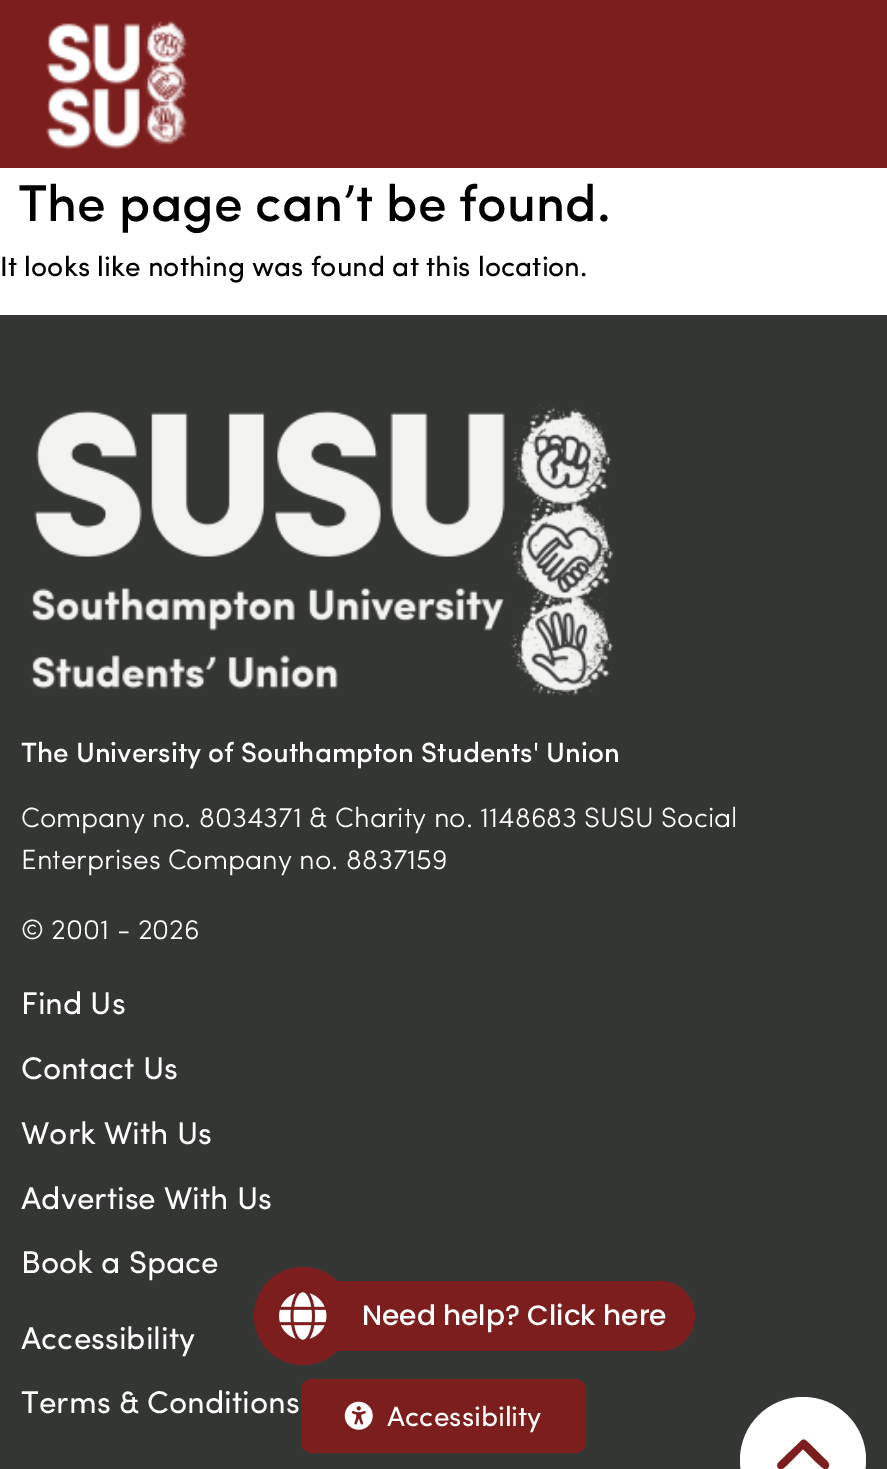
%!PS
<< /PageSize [887 1469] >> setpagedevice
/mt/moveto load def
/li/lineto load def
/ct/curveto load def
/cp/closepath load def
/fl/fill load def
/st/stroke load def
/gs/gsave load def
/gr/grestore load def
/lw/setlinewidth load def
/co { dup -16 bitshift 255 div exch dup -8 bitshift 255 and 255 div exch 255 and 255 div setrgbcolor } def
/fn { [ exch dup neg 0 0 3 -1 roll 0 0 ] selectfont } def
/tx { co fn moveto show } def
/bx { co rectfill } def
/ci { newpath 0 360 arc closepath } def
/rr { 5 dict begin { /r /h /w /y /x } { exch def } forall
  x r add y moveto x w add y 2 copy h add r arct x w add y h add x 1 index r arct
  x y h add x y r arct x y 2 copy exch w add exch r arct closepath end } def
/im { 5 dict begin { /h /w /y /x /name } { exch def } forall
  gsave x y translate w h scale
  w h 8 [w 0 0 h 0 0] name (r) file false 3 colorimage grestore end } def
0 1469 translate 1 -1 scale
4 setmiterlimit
0 0 887 1469 16#FFFFFF bx
0 0 887 168 16#7C1E1D bx
(media/1.raw) 46 21 142 129 im
0 315 887 1154 16#343633 bx
(media/2.raw) 31 404 583 292 im
16#FFFFFF co
803 1460 63 ci fl
16#7C1E1D co
801 1441 mt 804 1437 807 1442 810 1444 ct 825 1459 li 827 1461 831 1464 828 1468 ct 828 1469 826 1469 825 1469 ct 822 1469 806 1452 803 1449 ct 800 1452 784 1469 782 1469 ct 778 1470 776 1466 778 1463 ct cp fl
334 1281 mt 660 1281 li 679.5 1281 695 1296.5 695 1316 ct 695 1335.5 679.5 1351 660 1351 ct 334 1351 li cp fl
303 1316 49 ci fl
(media/3.raw) 279 1292 48 48 im
302 1380 283 72 10 rr gs fl gr
2 lw
st
(media/4.raw) 344 1401 29 29 im
(The page can’t be found.) 18 221 /Sofia-Medium 51.75 16#000000 tx
(It looks like nothing was found at this location.) 0 276 /Sofia-Regular 28 16#000000 tx
(The University of Southampton Students' Union) 21 762 /Sofia-Medium 28 16#FFFFFF tx
(Company no. 8034371 & Charity no. 1148683 SUSU Social) 21 827 /Sofia-Light 28 16#FFFFFF tx
(Enterprises Company no. 8837159) 21 869 /Sofia-Light 28 16#FFFFFF tx
(© 2001 - 2026) 21 939 /Sofia-Light 28 16#FFFFFF tx
(Find Us) 21 1014 /Sofia-Regular 31.5 16#FFFFFF tx
(Contact Us) 21 1079 /Sofia-Regular 31.5 16#FFFFFF tx
(Work With Us) 21 1144 /Sofia-Regular 31.5 16#FFFFFF tx
(Advertise With Us) 21 1209 /Sofia-Regular 31.5 16#FFFFFF tx
(Book a Space) 21 1273 /Sofia-Regular 31.5 16#FFFFFF tx
(Accessibility) 21 1349 /Sofia-Regular 31.5 16#FFFFFF tx
(Terms & Conditions) 21 1413 /Sofia-Regular 31.5 16#FFFFFF tx
(Need help? Click here) 362 1325 /Poppins-Medium 28 16#FFFFFF tx
(Accessibility) 387 1426 /Sofia-Regular 28 16#FFFFFF tx
showpage
